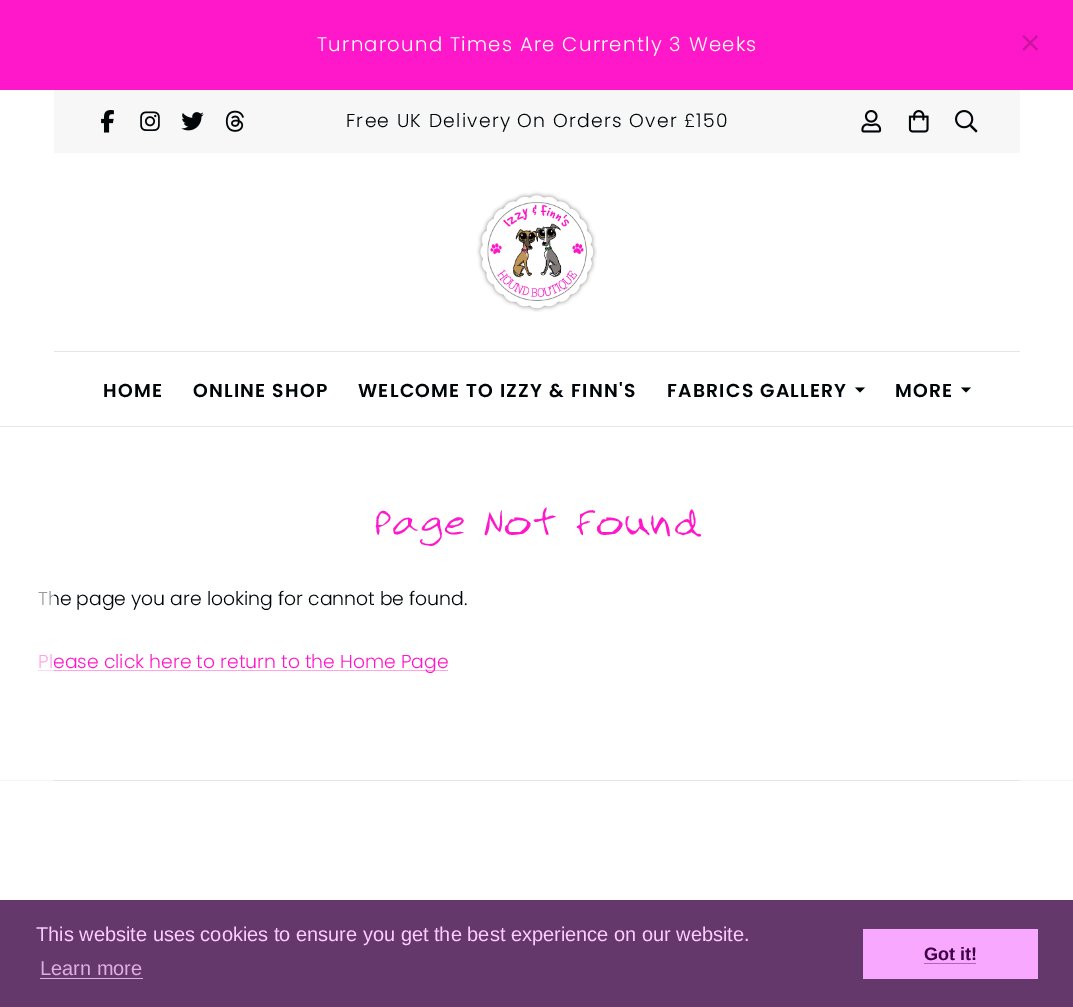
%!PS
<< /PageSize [1073 1007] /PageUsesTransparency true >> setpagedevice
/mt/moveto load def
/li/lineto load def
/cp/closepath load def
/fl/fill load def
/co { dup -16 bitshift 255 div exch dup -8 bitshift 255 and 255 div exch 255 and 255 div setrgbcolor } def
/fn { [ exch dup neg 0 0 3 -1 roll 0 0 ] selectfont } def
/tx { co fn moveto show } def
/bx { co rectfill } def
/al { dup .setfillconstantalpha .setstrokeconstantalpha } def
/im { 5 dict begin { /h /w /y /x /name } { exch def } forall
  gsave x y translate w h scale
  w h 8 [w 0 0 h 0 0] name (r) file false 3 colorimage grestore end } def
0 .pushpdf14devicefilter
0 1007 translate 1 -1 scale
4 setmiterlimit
0 0 1073 1007 16#FFFFFF bx
0 0 1073 90 16#FF18C9 bx
0 426 1073 1 16#E6E6E6 bx
54 90 966 63 16#F7F7F7 bx
(media/1.raw) 101 110 13 23 im
(media/2.raw) 140 111 20 20 im
(media/3.raw) 181 112 23 19 im
(media/4.raw) 225 110 19 22 im
(media/5.raw) 861 110 21 23 im
(media/6.raw) 908 110 21 23 im
(media/7.raw) 955 110 23 23 im
(media/8.raw) 476 191 121 121 im
54 351 966 1 16#E6E6E6 bx
16#000508 co
855 387.5 mt 865 387.5 li 860 392.5 li cp fl
961 387.5 mt 971 387.5 li 966 392.5 li cp fl
38 670 410 1 16#FFA3E9 bx
0 780 1020 1 16#E6E6E6 bx
1020 780 53 1 16#F5F5F5 bx
0 900 1073 107 16#64386B bx
40 978 103 1 16#E0AFE0 bx
863 929 175 50 16#F8A8FF bx
924 963 52 1 16#AE65B5 bx
/Poppins-Light 19.7 fn
16#FFFFFF co
317 51 mt 1.25 0 (Turnaround Times Are Currently 3 Weeks) ashow
(×) 1019 57 /Poppins-Light 38 16#CC13A1 tx
/Poppins-Light 18.75 fn
16#000508 co
346 127 mt 1.25 0 (Free UK Delivery On Orders Over £150) ashow
/Poppins-SemiBold 18.75 fn
103 397 mt 1.25 0 (HOME) ashow
193 397 mt 1.25 0 (ONLINE SHOP) ashow
358 397 mt 1.25 0 (WELCOME TO IZZY & FINN'S) ashow
667 397 mt 1.25 0 (FABRICS GALLERY) ashow
895 397 mt 1.25 0 (MORE) ashow
/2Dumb-Regular 33 fn
16#FF18C9 co
375 534 mt 1.25 0 (Page Not Found) ashow
(The page you are looking for cannot be found.) 38 605 /Poppins-Light 18.75 16#000508 tx
(Please click here to return to the Home Page) 38 668 /Poppins-Light 18.75 16#FF18C9 tx
0.6 al
0 591 54 190 16#FFFFFF bx
1 al
(This website uses cookies to ensure you get the best experience on our website.) 36 941 /LiberationSans-Regular 20 16#FFCDFD tx
(Learn more) 40 975 /LiberationSans-Regular 20 16#E0AFE0 tx
(Got it!) 924 960 /LiberationSans-Bold 18 16#3F0045 tx
.poppdf14devicefilter showpage
